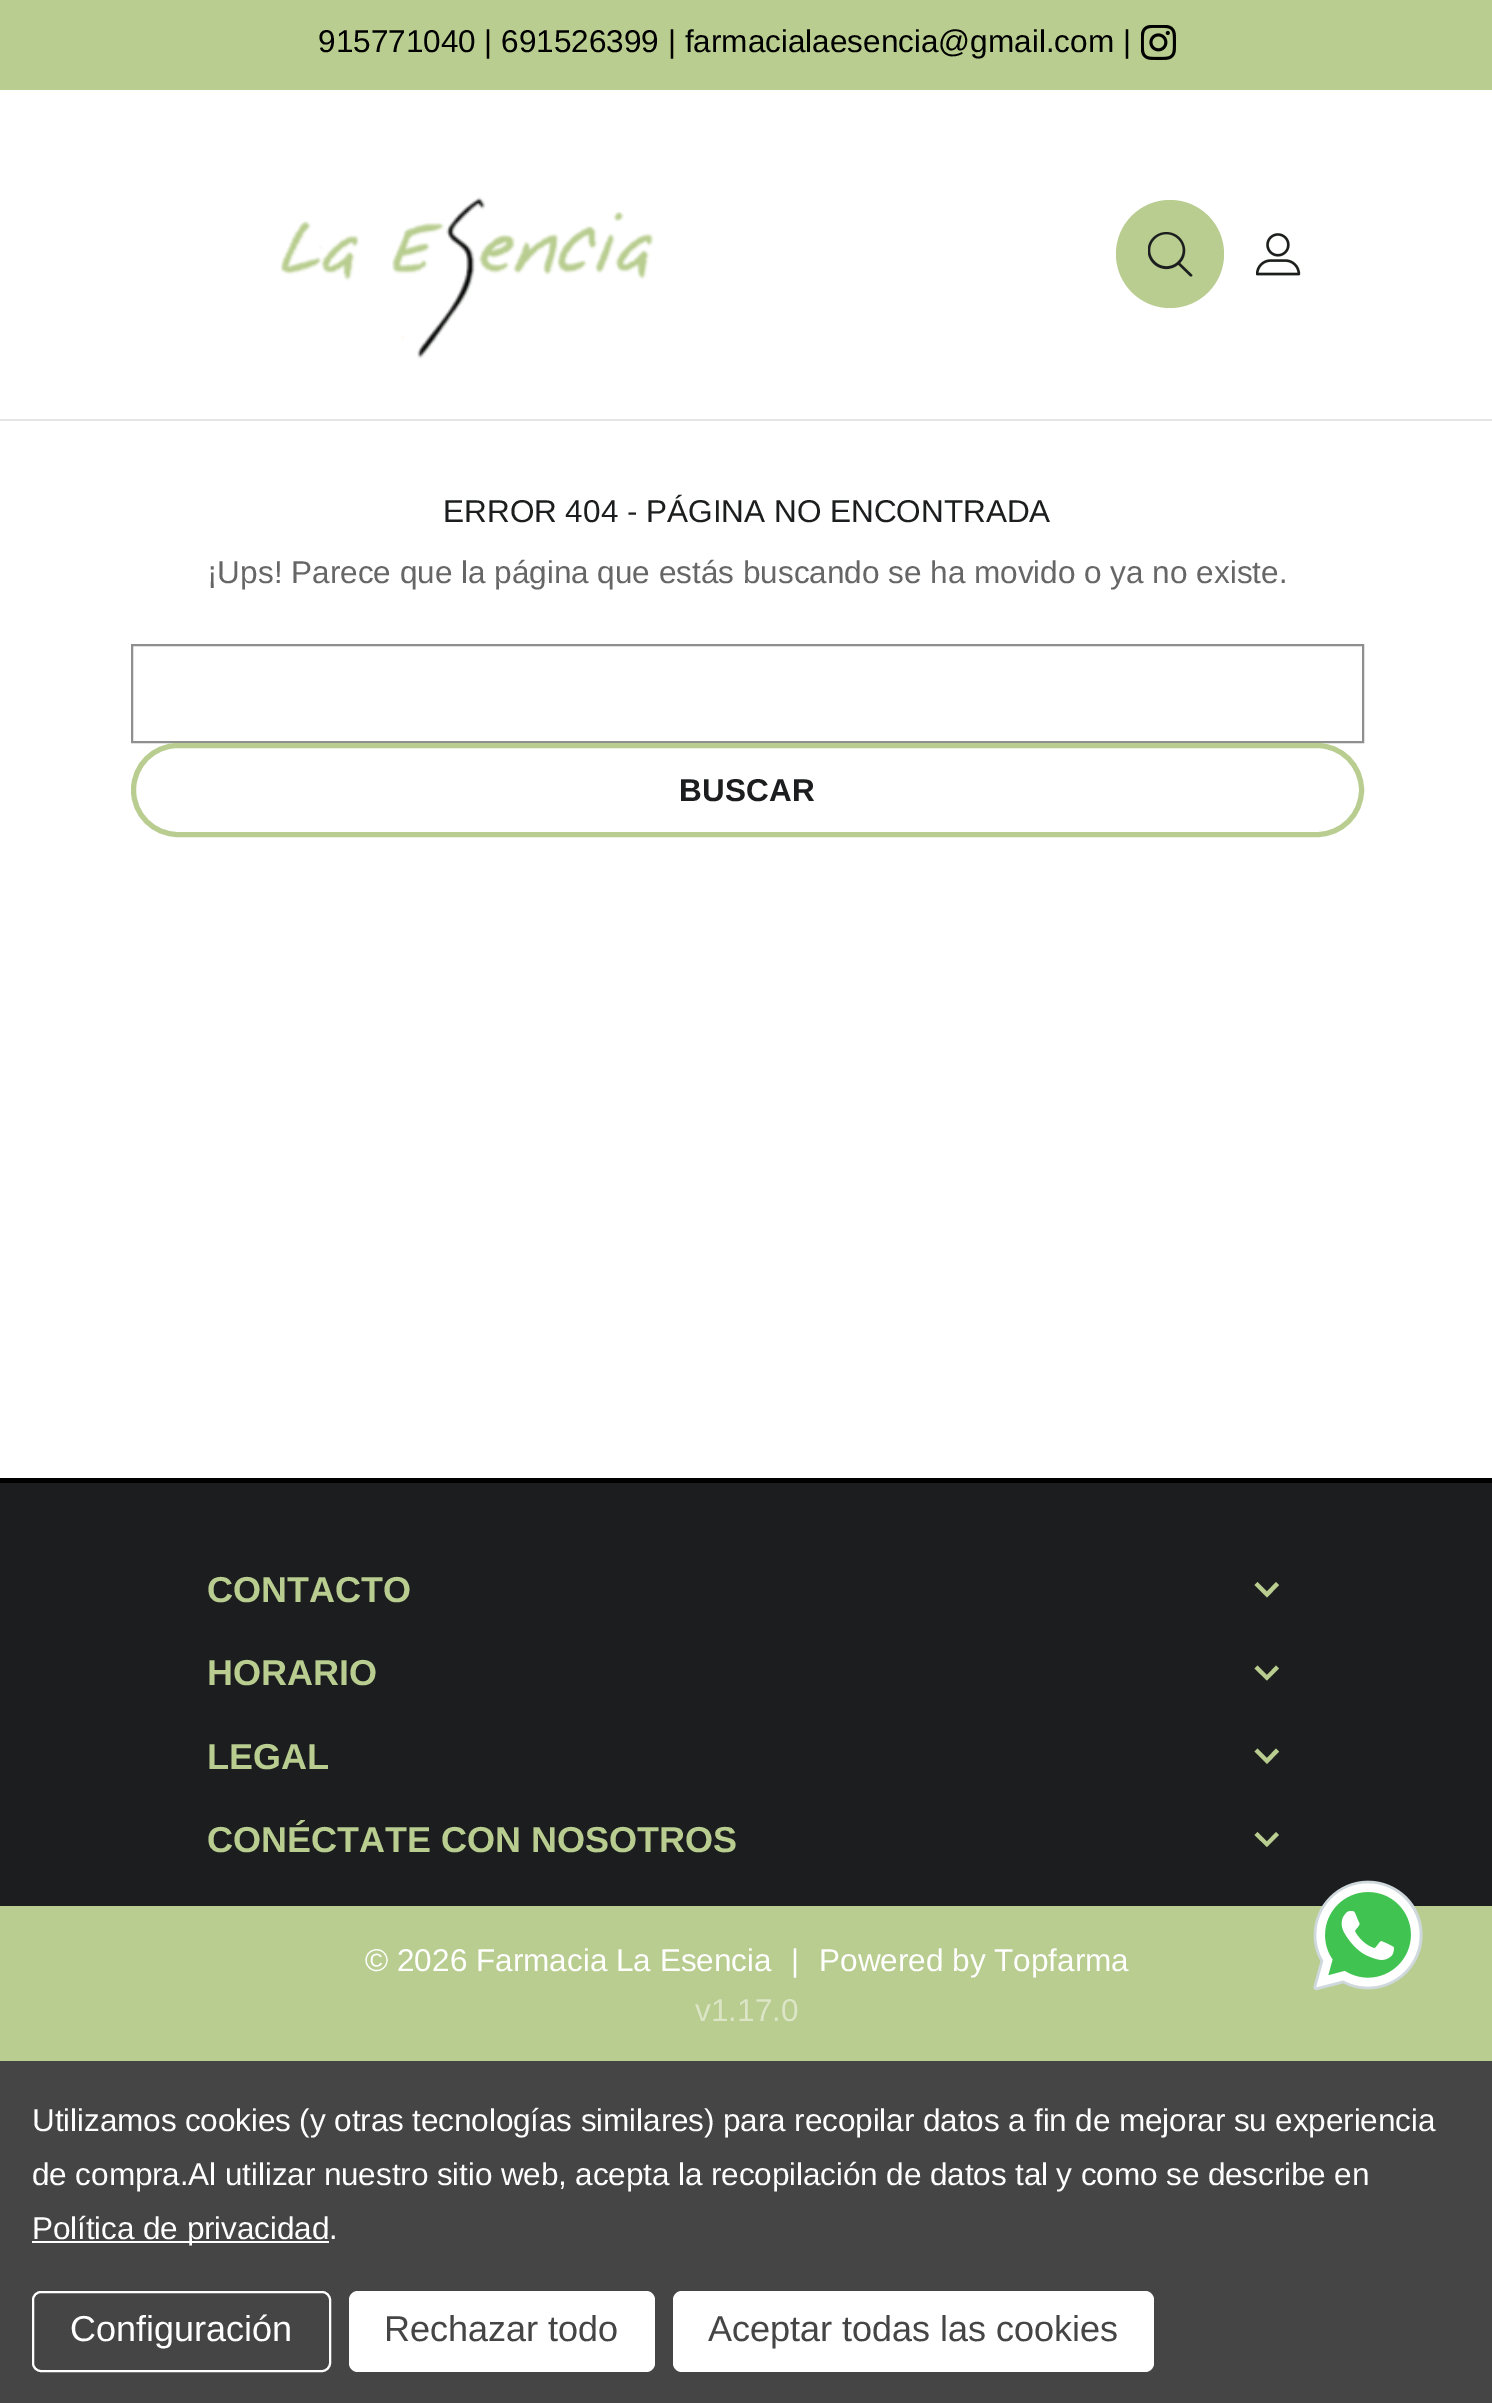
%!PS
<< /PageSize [1492 2403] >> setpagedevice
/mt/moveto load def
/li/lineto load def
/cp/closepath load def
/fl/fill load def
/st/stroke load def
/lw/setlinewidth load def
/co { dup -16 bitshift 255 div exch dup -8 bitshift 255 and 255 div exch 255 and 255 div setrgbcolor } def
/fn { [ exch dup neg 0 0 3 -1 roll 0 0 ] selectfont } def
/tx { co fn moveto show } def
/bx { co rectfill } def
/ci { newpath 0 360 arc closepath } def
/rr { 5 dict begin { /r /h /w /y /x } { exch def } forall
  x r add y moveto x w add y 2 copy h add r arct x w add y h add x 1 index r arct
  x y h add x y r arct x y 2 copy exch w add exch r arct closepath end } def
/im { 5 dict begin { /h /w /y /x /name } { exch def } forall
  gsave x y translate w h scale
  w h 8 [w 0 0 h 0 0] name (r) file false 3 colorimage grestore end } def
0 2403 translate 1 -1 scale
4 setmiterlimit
0 0 1492 2403 16#FFFFFF bx
0 0 1492 90 16#B8CD8F bx
(media/1.raw) 1141 25 35 35 im
(media/2.raw) 280 197 374 162 im
1170 254 54 ci fl
(media/3.raw) 1148 232 45 45 im
(media/4.raw) 1256 233 45 43 im
0 419 1492 2 16#E5E5E5 bx
16#8F8F8F co
2 lw
132 645 1231 97 rectstroke
16#B8CD8F co
5 lw
133.5 745.5 1228 89 44.5 rr st
0 1483 1492 423 16#1C1D1E bx
0 1478 1492 5 16#000000 bx
16#B8CD8F co
1257.5 1582 mt 1267 1591.5 li 1276 1582 li 1279 1585 li 1267 1597.5 li 1254.5 1585 li cp fl
1257.5 1665.5 mt 1267 1675 li 1276 1665.5 li 1279 1668.5 li 1267 1680.5 li 1254.5 1668.5 li cp fl
1257.5 1748.5 mt 1267 1758 li 1276 1748.5 li 1279 1751.5 li 1267 1764 li 1254.5 1751.5 li cp fl
1257.5 1832 mt 1267 1841.5 li 1276 1832 li 1279 1835 li 1267 1847 li 1254.5 1835 li cp fl
0 1906 1492 155 16#B8CD8F bx
(media/5.raw) 1313 1880 110 111 im
0 2061 1492 342 16#454545 bx
32 2241 297 2 16#FFFFFF bx
2 lw
33 2292 297 79 8 rr st
349 2291 306 81 9 rr fl
673 2291 481 81 9 rr fl
(915771040 | 691526399 | farmacialaesencia@gmail.com |) 318 52 /LiberationSans-Regular 31.5 16#000000 tx
(ERROR 404 - PÁGINA NO ENCONTRADA) 443 522 /LiberationSans-Regular 31.5 16#1C1D1E tx
(¡Ups! Parece que la página que estás buscando se ha movido o ya no existe.) 207 583 /LiberationSans-Regular 31.5 16#666666 tx
/LiberationSans-Bold 31.5 fn
16#1C1D1E co
679 801 mt .25 0 (BUSCAR) ashow
(CONTACTO) 207 1602 /LiberationSans-Bold 36 16#B8CD8F tx
(HORARIO) 207 1685 /LiberationSans-Bold 36 16#B8CD8F tx
(LEGAL) 207 1769 /LiberationSans-Bold 36 16#B8CD8F tx
(CONÉCTATE CON NOSOTROS) 207 1852 /LiberationSans-Bold 36 16#B8CD8F tx
(© 2026 Farmacia La Esencia) 365 1971 /LiberationSans-Regular 31.5 16#FFFFFF tx
(|) 791 1971 /LiberationSans-Regular 31.5 16#FFFFFF tx
(Powered by Topfarma) 819 1971 /LiberationSans-Regular 31.5 16#FFFFFF tx
(v1.17.0) 695 2021 /LiberationSans-Regular 31.5 16#DCE6C7 tx
16#FFFFFF co
32 2131 mt -.11 0 (Utilizamos cookies \(y otras tecnologías similares\) para recopilar datos a fin de mejorar su experiencia) ashow
32 2185 mt -.11 0 (de compra.Al utilizar nuestro sitio web, acepta la recopilación de datos tal y como se describe en) ashow
32 2239 mt -.11 0 (Política de privacidad.) ashow
(Configuración) 70 2341 /LiberationSans-Regular 36 16#FFFFFF tx
(Rechazar todo) 384 2341 /LiberationSans-Regular 36 16#454545 tx
(Aceptar todas las cookies) 708 2341 /LiberationSans-Regular 36 16#454545 tx
showpage
